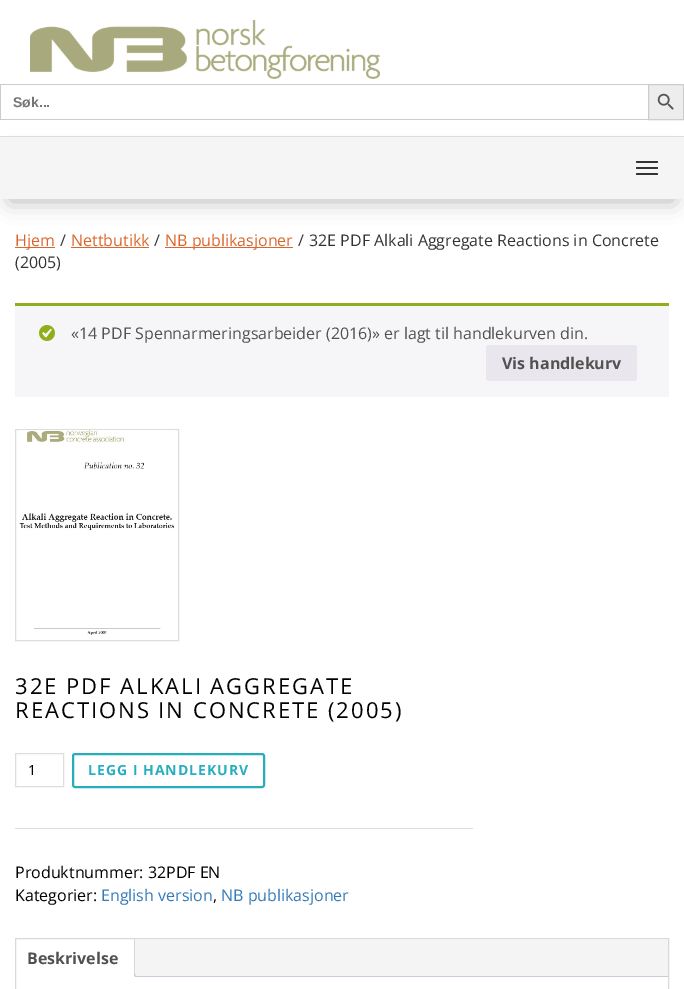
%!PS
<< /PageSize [684 989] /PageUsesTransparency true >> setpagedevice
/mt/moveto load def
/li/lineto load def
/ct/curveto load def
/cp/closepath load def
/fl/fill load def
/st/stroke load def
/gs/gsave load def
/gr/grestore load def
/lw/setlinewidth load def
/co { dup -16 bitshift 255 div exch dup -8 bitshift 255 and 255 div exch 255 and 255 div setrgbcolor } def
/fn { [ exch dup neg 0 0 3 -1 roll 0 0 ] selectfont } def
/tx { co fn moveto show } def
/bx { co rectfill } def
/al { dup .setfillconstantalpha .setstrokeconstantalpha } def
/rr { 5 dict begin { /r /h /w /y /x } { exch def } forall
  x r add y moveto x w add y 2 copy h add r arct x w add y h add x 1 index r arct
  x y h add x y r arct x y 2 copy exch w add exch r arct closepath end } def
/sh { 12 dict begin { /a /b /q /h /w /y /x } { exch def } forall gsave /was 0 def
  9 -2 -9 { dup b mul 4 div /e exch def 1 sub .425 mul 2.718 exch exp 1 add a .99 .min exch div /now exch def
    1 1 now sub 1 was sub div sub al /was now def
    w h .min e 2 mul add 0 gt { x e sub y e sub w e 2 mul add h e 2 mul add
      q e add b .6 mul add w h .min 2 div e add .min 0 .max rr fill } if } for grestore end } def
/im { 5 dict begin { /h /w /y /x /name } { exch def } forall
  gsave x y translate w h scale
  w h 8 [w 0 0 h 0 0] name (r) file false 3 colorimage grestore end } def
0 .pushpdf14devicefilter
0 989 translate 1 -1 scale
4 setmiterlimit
0 0 684 989 16#FFFFFF bx
(media/1.raw) 30 20 350 59 im
0 84 648 1 16#CCCCCC bx
0 119 648 1 16#CCCCCC bx
0 84 1 36 16#CCCCCC bx
16#EDEDED co
648.5 84.5 mt 683.5 84.5 li 683.5 119.5 li 648.5 119.5 li cp gs fl gr
16#CCCCCC co
st
(media/2.raw) 657 93 17 17 im
16#000000 co
10 158 664 43 0 11 .3 sh
0 137 684 62 16#F5F5F5 bx
0 136 684 1 16#DDDDDD bx
16#333333 co
636 161 22 2 1 rr fl
636 167 22 2 1 rr fl
636 173 22 2 1 rr fl
15 247 40 1 16#DA662B bx
71 247 78 1 16#DA662B bx
165 247 128 1 16#DA662B bx
15 306 654 91 16#F6F5F8 bx
15 303 654 3 16#8FAE1B bx
(media/3.raw) 39 325 16 16 im
16#E9E6ED co
486 345 151 36 3 rr fl
16#DDDDDD co
15.5 429.5 163 211 rectstroke
(media/4.raw) 19 430 156 205 im
15 828 458 1 16#DDDDDD bx
15.5 753.5 48 33 rectstroke
16#27AEBC co
2 lw
73 754 191 33 2 rr st
16#D9D9D9 co
1 lw
15.5 938.5 653 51 rectstroke
135 939 533 37 16#F4F4F4 bx
134 939 1 38 16#D9D9D9 bx
135 976 533 1 16#CFC8D8 bx
gs
16 939 652 38 rectclip
16#FFFFFF co
132 975 mt 132 978.5 133.5 980 137 980 ct 137 978 li 135.5 977.5 134.5 976.5 134 975 ct cp fl
16#CFC8D8 co
134 973 mt 139 973 li 139 978 li 136.5 978 134 977 134 974 ct cp 135 973 mt 139 973 li 139 977 li 137 977 135 976.5 135 974 ct cp eofill
gr
(Søk...) 13 107 /LiberationSans-Bold 14 16#757575 tx
(Hjem) 15 246 /OpenSans-Regular 16 16#DA662B tx
(/) 60 246 /OpenSans-Regular 16 16#333333 tx
(Nettbutikk) 71 246 /OpenSans-Regular 16 16#DA662B tx
(/) 154 246 /OpenSans-Regular 16 16#333333 tx
(NB publikasjoner) 165 246 /OpenSans-Regular 16 16#DA662B tx
(/) 298 246 /OpenSans-Regular 16 16#333333 tx
(32E PDF Alkali Aggregate Reactions in Concrete) 309 246 /OpenSans-Regular 16 16#333333 tx
(\(2005\)) 15 268 /OpenSans-Regular 16 16#333333 tx
(«14 PDF Spennarmeringsarbeider \(2016\)» er lagt til handlekurven din.) 71 339 /OpenSans-Regular 16 16#515151 tx
(Vis handlekurv) 502 369 /OpenSans-Bold 16 16#515151 tx
/OpenSans-Regular 22 fn
16#000000 co
15 694 mt 2 0 (32E PDF ALKALI AGGREGATE) ashow
15 718 mt 2 0 (REACTIONS IN CONCRETE \(2005\)) ashow
(1) 28 775 /OpenSans-Regular 14 16#000000 tx
/OpenSans-Bold 14 fn
16#27AEBF co
88 775 mt 1 0 (LEGG I HANDLEKURV) ashow
(Produktnummer: 32PDF EN) 15 878 /OpenSans-Regular 16 16#000000 tx
(Kategorier:) 15 901 /OpenSans-Regular 16 16#000000 tx
(English version) 101 901 /OpenSans-Regular 16 16#337AB7 tx
(,) 213 901 /OpenSans-Regular 16 16#000000 tx
(NB publikasjoner) 221 901 /OpenSans-Regular 16 16#337AB7 tx
(Beskrivelse) 27 964 /OpenSans-Bold 16 16#515151 tx
.poppdf14devicefilter showpage
